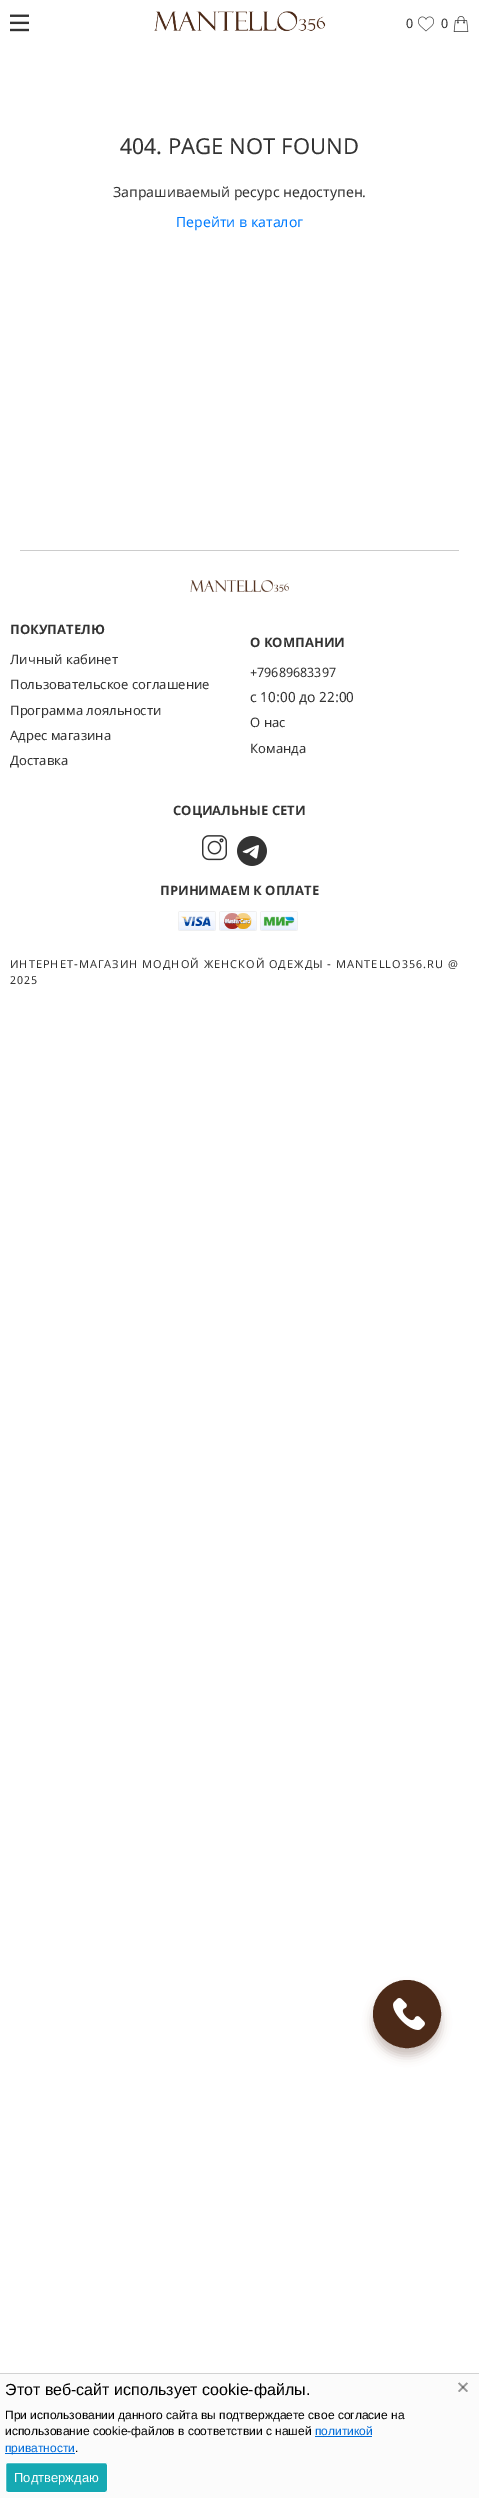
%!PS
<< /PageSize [479 2498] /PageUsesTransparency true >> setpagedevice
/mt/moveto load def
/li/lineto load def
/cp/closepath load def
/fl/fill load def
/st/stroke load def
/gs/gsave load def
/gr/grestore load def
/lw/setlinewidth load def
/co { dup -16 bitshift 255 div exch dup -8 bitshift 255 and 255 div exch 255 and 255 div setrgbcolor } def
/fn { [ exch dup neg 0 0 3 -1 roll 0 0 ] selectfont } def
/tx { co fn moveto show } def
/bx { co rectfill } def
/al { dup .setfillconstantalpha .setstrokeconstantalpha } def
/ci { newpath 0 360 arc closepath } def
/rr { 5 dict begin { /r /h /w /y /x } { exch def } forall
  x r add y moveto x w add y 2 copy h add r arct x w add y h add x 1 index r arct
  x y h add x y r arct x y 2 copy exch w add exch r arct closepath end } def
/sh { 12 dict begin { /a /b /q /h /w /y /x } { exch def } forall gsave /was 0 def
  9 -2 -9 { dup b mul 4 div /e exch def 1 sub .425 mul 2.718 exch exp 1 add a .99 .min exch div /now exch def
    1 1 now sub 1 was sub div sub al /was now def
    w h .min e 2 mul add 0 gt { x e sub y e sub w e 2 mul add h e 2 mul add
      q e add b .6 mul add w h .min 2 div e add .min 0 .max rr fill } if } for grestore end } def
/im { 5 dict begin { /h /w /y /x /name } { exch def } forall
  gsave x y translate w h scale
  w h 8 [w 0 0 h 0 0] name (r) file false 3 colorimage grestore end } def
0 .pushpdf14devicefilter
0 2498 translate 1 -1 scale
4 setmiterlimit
0 0 479 2498 16#FFFFFF bx
(media/1.raw) 10 14 19 18 im
(media/2.raw) 154 11 172 21 im
(media/3.raw) 418 16 16 16 im
(media/4.raw) 453 16 16 16 im
20 550 439 1 16#CCCCCC bx
(media/5.raw) 190 580 99 12 im
(media/6.raw) 202 835 25 26 im
(media/7.raw) 237 836 30 30 im
(media/8.raw) 178 911 38 20 im
(media/9.raw) 219 911 38 20 im
(media/10.raw) 260 911 38 20 im
16#4C2A18 co
373 1988 68 68 34 5 .3 sh
407 2014 33 ci gs fl gr
2 lw
st
(media/11.raw) 393 1998 32 32 im
0 2374 479 124 16#FBFBFB bx
0 2373 479 1 16#D2D2D2 bx
16#979797 co
459.5 2382.5 mt 468 2391 li 466.5 2392 li 458 2383.5 li cp fl
0.5 al
16#333333 co
458 2391 mt 466.5 2382.5 li 468 2383.5 li 459.5 2392 li cp fl
1 al
315 2436 57 1 16#006BD8 bx
5 2453 70 1 16#006BD8 bx
16#16A9B3 co
5.5 2462.5 102 30 2.5 rr gs fl gr
16#FFFFFF co
1 lw
st
(0) 406 28 /NotoSans-Regular 13 16#333333 tx
(0) 441 28 /NotoSans-Regular 13 16#333333 tx
(404. PAGE NOT FOUND) 120 154 /NotoSans-Regular 22 16#333333 tx
(Запрашиваемый ресурс недоступен.) 113 197 /NotoSans-Regular 14 16#333333 tx
(Перейти в каталог) 176 227 /NotoSans-Regular 14 16#007BFF tx
(ПОКУПАТЕЛЮ) 10 634 /NotoSans-Bold 13 16#333333 tx
(Личный кабинет) 10 664 /NotoSans-Regular 13 16#333333 tx
(Пользовательское соглашение) 10 689 /NotoSans-Regular 13 16#333333 tx
(Программа лояльности) 10 715 /NotoSans-Regular 13 16#333333 tx
(Адрес магазина) 10 740 /NotoSans-Regular 13 16#333333 tx
(Доставка) 10 765 /NotoSans-Regular 13 16#333333 tx
(О КОМПАНИИ) 250 647 /NotoSans-Bold 13 16#333333 tx
(+79689683397) 250 677 /NotoSans-Regular 13 16#333333 tx
(c 10:00 до 22:00) 250 702 /NotoSans-Regular 14 16#333333 tx
(О нас) 250 727 /NotoSans-Regular 13 16#333333 tx
(Команда) 250 753 /NotoSans-Regular 13 16#333333 tx
(СОЦИАЛЬНЫЕ СЕТИ) 173 815 /NotoSans-Bold 13 16#333333 tx
(ПРИНИМАЕМ К ОПЛАТЕ) 160 895 /NotoSans-Bold 13 16#333333 tx
/NotoSans-Regular 11 fn
10 968 mt 1 0 (ИНТЕРНЕТ-МАГАЗИН МОДНОЙ ЖЕНСКОЙ ОДЕЖДЫ - MANTELLO356.RU @) ashow
10 984 mt 1 0 (2025) ashow
(Этот веб-сайт использует cookie-файлы.) 5 2395 /LiberationSans-Regular 16 16#000000 tx
(При использовании данного сайта вы подтверждаете свое согласие на) 5 2419 /LiberationSans-Regular 12 16#000000 tx
(использование cookie-файлов в соответствии с нашей) 5 2435 /LiberationSans-Regular 12 16#000000 tx
(политикой) 315 2435 /LiberationSans-Regular 12 16#006BD8 tx
(приватности) 5 2452 /LiberationSans-Regular 12 16#006BD8 tx
(.) 75 2452 /LiberationSans-Regular 12 16#000000 tx
(Подтверждаю) 14 2482 /LiberationSans-Regular 13 16#FFFFFF tx
.poppdf14devicefilter showpage
